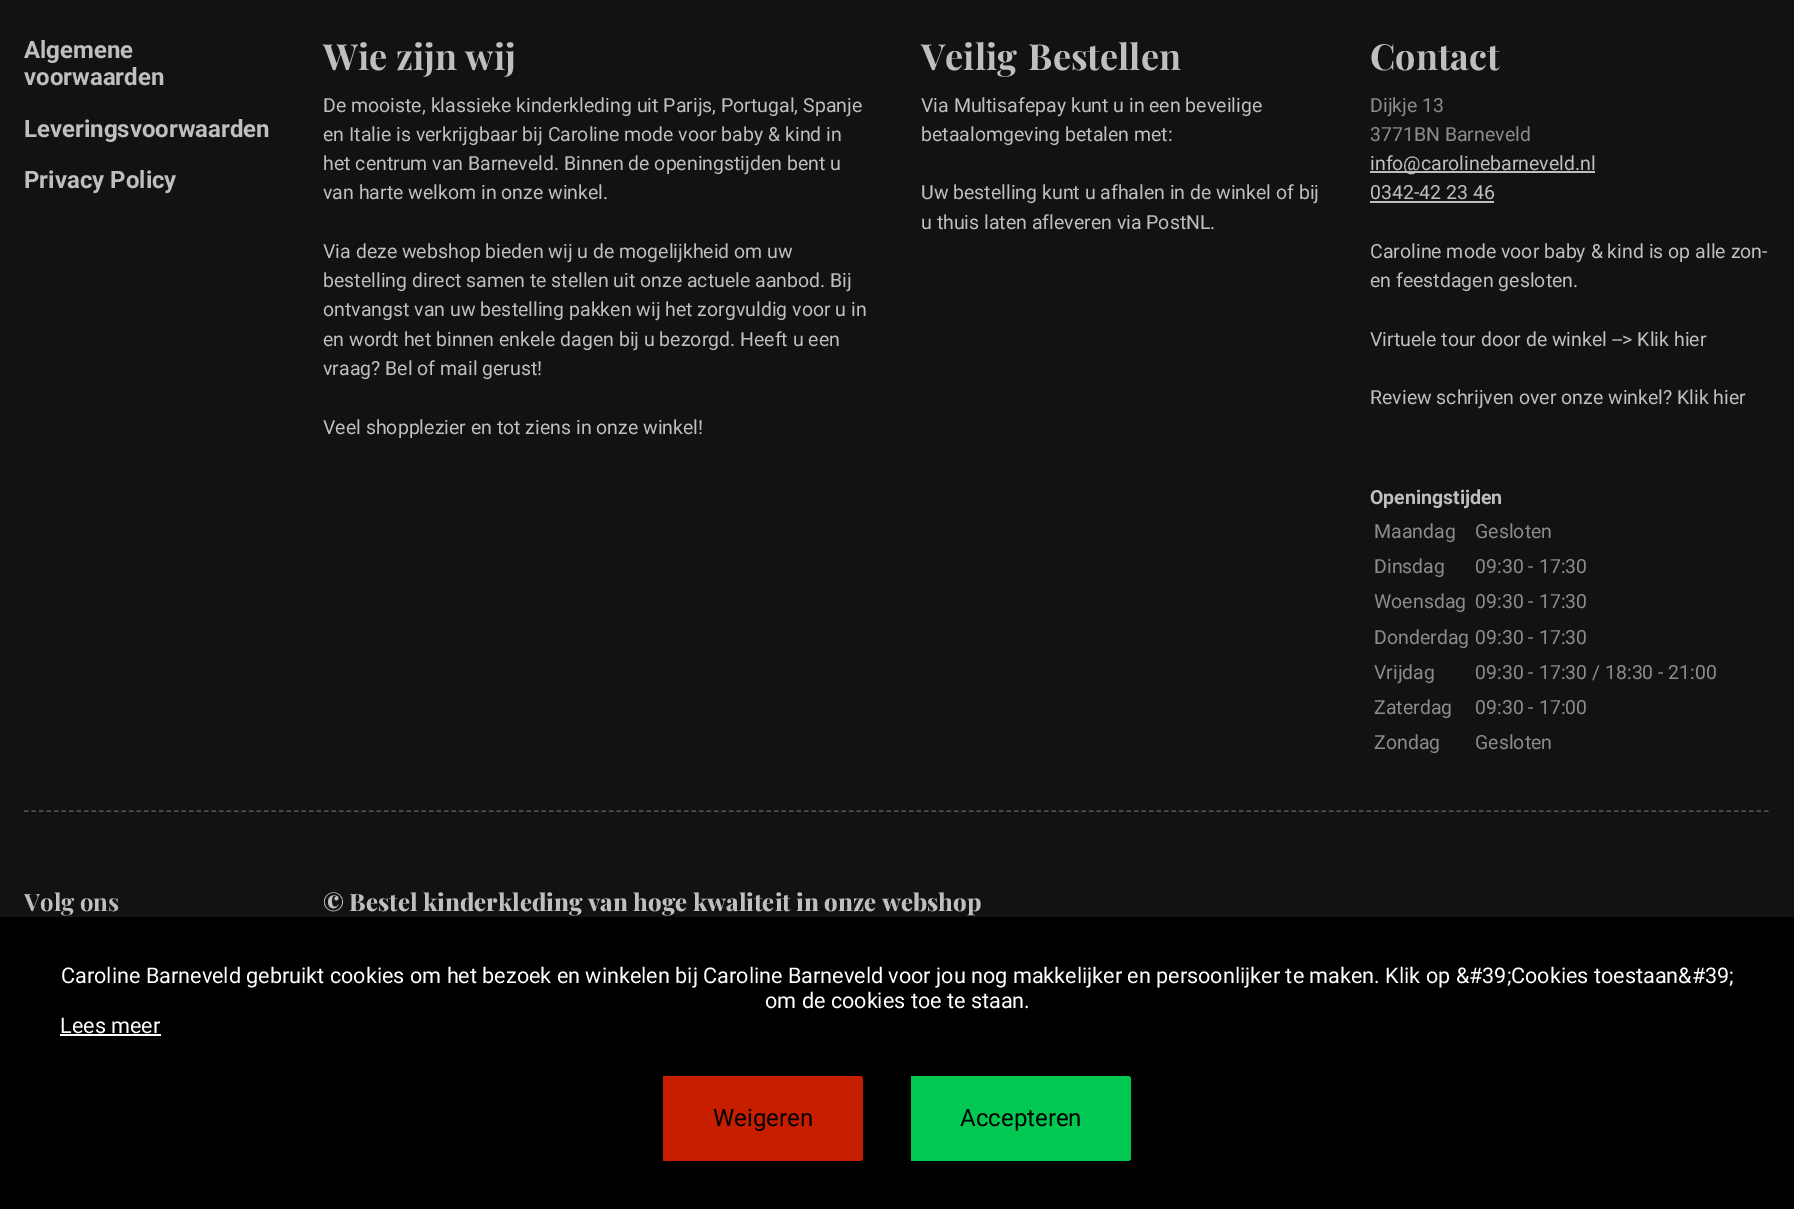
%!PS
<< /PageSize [1794 1209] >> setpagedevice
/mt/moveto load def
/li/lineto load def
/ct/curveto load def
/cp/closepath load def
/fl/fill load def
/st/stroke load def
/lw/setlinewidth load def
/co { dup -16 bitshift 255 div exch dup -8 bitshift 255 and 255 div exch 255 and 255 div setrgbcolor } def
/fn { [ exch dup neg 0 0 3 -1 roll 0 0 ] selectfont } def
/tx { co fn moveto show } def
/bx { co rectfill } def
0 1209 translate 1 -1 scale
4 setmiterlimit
0 0 1794 1209 16#141114 bx
1370 171 225 2 16#BFBFBF bx
1370 201 124 2 16#BFBFBF bx
16#504E50 co
1.5 lw
[4.5 3] 0 setdash
24 811 mt 1770 811 li st
0 917 1794 292 16#000000 bx
60 1034 101 2 16#FFFFFF bx
16#C81E00 co
663 1076 mt 860 1076 li 861.5 1076 863 1077.5 863 1079 ct 863 1158 li 863 1159.5 861.5 1161 860 1161 ct 663 1161 li cp fl
16#00C853 co
911 1076 mt 1128 1076 li 1129.5 1076 1131 1077.5 1131 1079 ct 1131 1158 li 1131 1159.5 1129.5 1161 1128 1161 ct 911 1161 li cp fl
(Algemene) 24 58 /Roboto-Bold 24 16#BFBFBF tx
(voorwaarden) 24 85 /Roboto-Bold 24 16#BFBFBF tx
(Leveringsvoorwaarden) 24 137 /Roboto-Bold 24 16#BFBFBF tx
(Privacy Policy) 24 188 /Roboto-Bold 24 16#BFBFBF tx
(Wie zijn wij) 323 70 /PlayfairDisplay-Bold 36 16#BFBFBF tx
(De mooiste, klassieke kinderkleding uit Parijs, Portugal, Spanje) 323 112 /Roboto-Regular 19.5 16#BFBFBF tx
(en Italie is verkrijgbaar bij Caroline mode voor baby & kind in) 323 141 /Roboto-Regular 19.5 16#BFBFBF tx
(het centrum van Barneveld. Binnen de openingstijden bent u) 323 170 /Roboto-Regular 19.5 16#BFBFBF tx
(van harte welkom in onze winkel.) 323 199 /Roboto-Regular 19.5 16#BFBFBF tx
(Via deze webshop bieden wij u de mogelijkheid om uw) 323 258 /Roboto-Regular 19.5 16#BFBFBF tx
(bestelling direct samen te stellen uit onze actuele aanbod. Bij) 323 287 /Roboto-Regular 19.5 16#BFBFBF tx
(ontvangst van uw bestelling pakken wij het zorgvuldig voor u in) 323 316 /Roboto-Regular 19.5 16#BFBFBF tx
(en wordt het binnen enkele dagen bij u bezorgd. Heeft u een) 323 346 /Roboto-Regular 19.5 16#BFBFBF tx
(vraag? Bel of mail gerust!) 323 375 /Roboto-Regular 19.5 16#BFBFBF tx
(Veel shopplezier en tot ziens in onze winkel!) 323 434 /Roboto-Regular 19.5 16#BFBFBF tx
/PlayfairDisplay-Bold 36 fn
921 70 mt 3 0 32 (Veilig Bestellen) widthshow
(Via Multisafepay kunt u in een beveilige) 921 112 /Roboto-Regular 19.5 16#BFBFBF tx
(betaalomgeving betalen met:) 921 141 /Roboto-Regular 19.5 16#BFBFBF tx
(Uw bestelling kunt u afhalen in de winkel of bij) 921 199 /Roboto-Regular 19.5 16#BFBFBF tx
(u thuis laten afleveren via PostNL.) 921 229 /Roboto-Regular 19.5 16#BFBFBF tx
(Contact) 1370 70 /PlayfairDisplay-Bold 36 16#BFBFBF tx
(Dijkje 13) 1370 112 /Roboto-Regular 19.5 16#8C8B8C tx
(3771BN Barneveld) 1370 141 /Roboto-Regular 19.5 16#8C8B8C tx
(info@carolinebarneveld.nl) 1370 170 /Roboto-Regular 19.5 16#BFBFBF tx
(0342-42 23 46) 1370 199 /Roboto-Regular 19.5 16#BFBFBF tx
(Caroline mode voor baby & kind is op alle zon-) 1370 258 /Roboto-Regular 19.5 16#BFBFBF tx
(en feestdagen gesloten.) 1370 287 /Roboto-Regular 19.5 16#BFBFBF tx
(Virtuele tour door de winkel --> Klik hier) 1370 346 /Roboto-Regular 19.5 16#BFBFBF tx
(Review schrijven over onze winkel? Klik hier) 1370 404 /Roboto-Regular 19.5 16#BFBFBF tx
(Openingstijden) 1370 504 /Roboto-Bold 19.5 16#BFBFBF tx
(Maandag) 1374 538 /Roboto-Regular 19.5 16#8C8B8C tx
(Gesloten) 1475 538 /Roboto-Regular 19.5 16#8C8B8C tx
(Dinsdag) 1374 573 /Roboto-Regular 19.5 16#8C8B8C tx
(09:30 - 17:30) 1475 573 /Roboto-Regular 19.5 16#8C8B8C tx
(Woensdag) 1374 608 /Roboto-Regular 19.5 16#8C8B8C tx
(09:30 - 17:30) 1475 608 /Roboto-Regular 19.5 16#8C8B8C tx
(Donderdag) 1374 644 /Roboto-Regular 19.5 16#8C8B8C tx
(09:30 - 17:30) 1475 644 /Roboto-Regular 19.5 16#8C8B8C tx
(Vrijdag) 1374 679 /Roboto-Regular 19.5 16#8C8B8C tx
(09:30 - 17:30 / 18:30 - 21:00) 1475 679 /Roboto-Regular 19.5 16#8C8B8C tx
(Zaterdag) 1374 714 /Roboto-Regular 19.5 16#8C8B8C tx
(09:30 - 17:00) 1475 714 /Roboto-Regular 19.5 16#8C8B8C tx
(Zondag) 1374 749 /Roboto-Regular 19.5 16#8C8B8C tx
(Gesloten) 1475 749 /Roboto-Regular 19.5 16#8C8B8C tx
(Volg ons) 24 911 /PlayfairDisplay-Bold 24 16#BFBFBF tx
(© Bestel kinderkleding van hoge kwaliteit in onze webshop) 323 911 /PlayfairDisplay-ExtraBold 24 16#BFBFBF tx
(Caroline Barneveld gebruikt cookies om het bezoek en winkelen bij Caroline Barneveld voor jou nog makkelijker en persoonlijker te maken. Klik op &#39;Cookies toestaan&#39;) 61 983 /Roboto-Regular 21.6 16#FFFFFF tx
(om de cookies toe te staan.) 765 1008 /Roboto-Regular 21.6 16#FFFFFF tx
(Lees meer) 60 1033 /Roboto-Regular 21.6 16#FFFFFF tx
(Weigeren) 713 1126 /Roboto-Regular 24 16#000000 tx
(Accepteren) 960 1126 /Roboto-Regular 24 16#000000 tx
showpage
